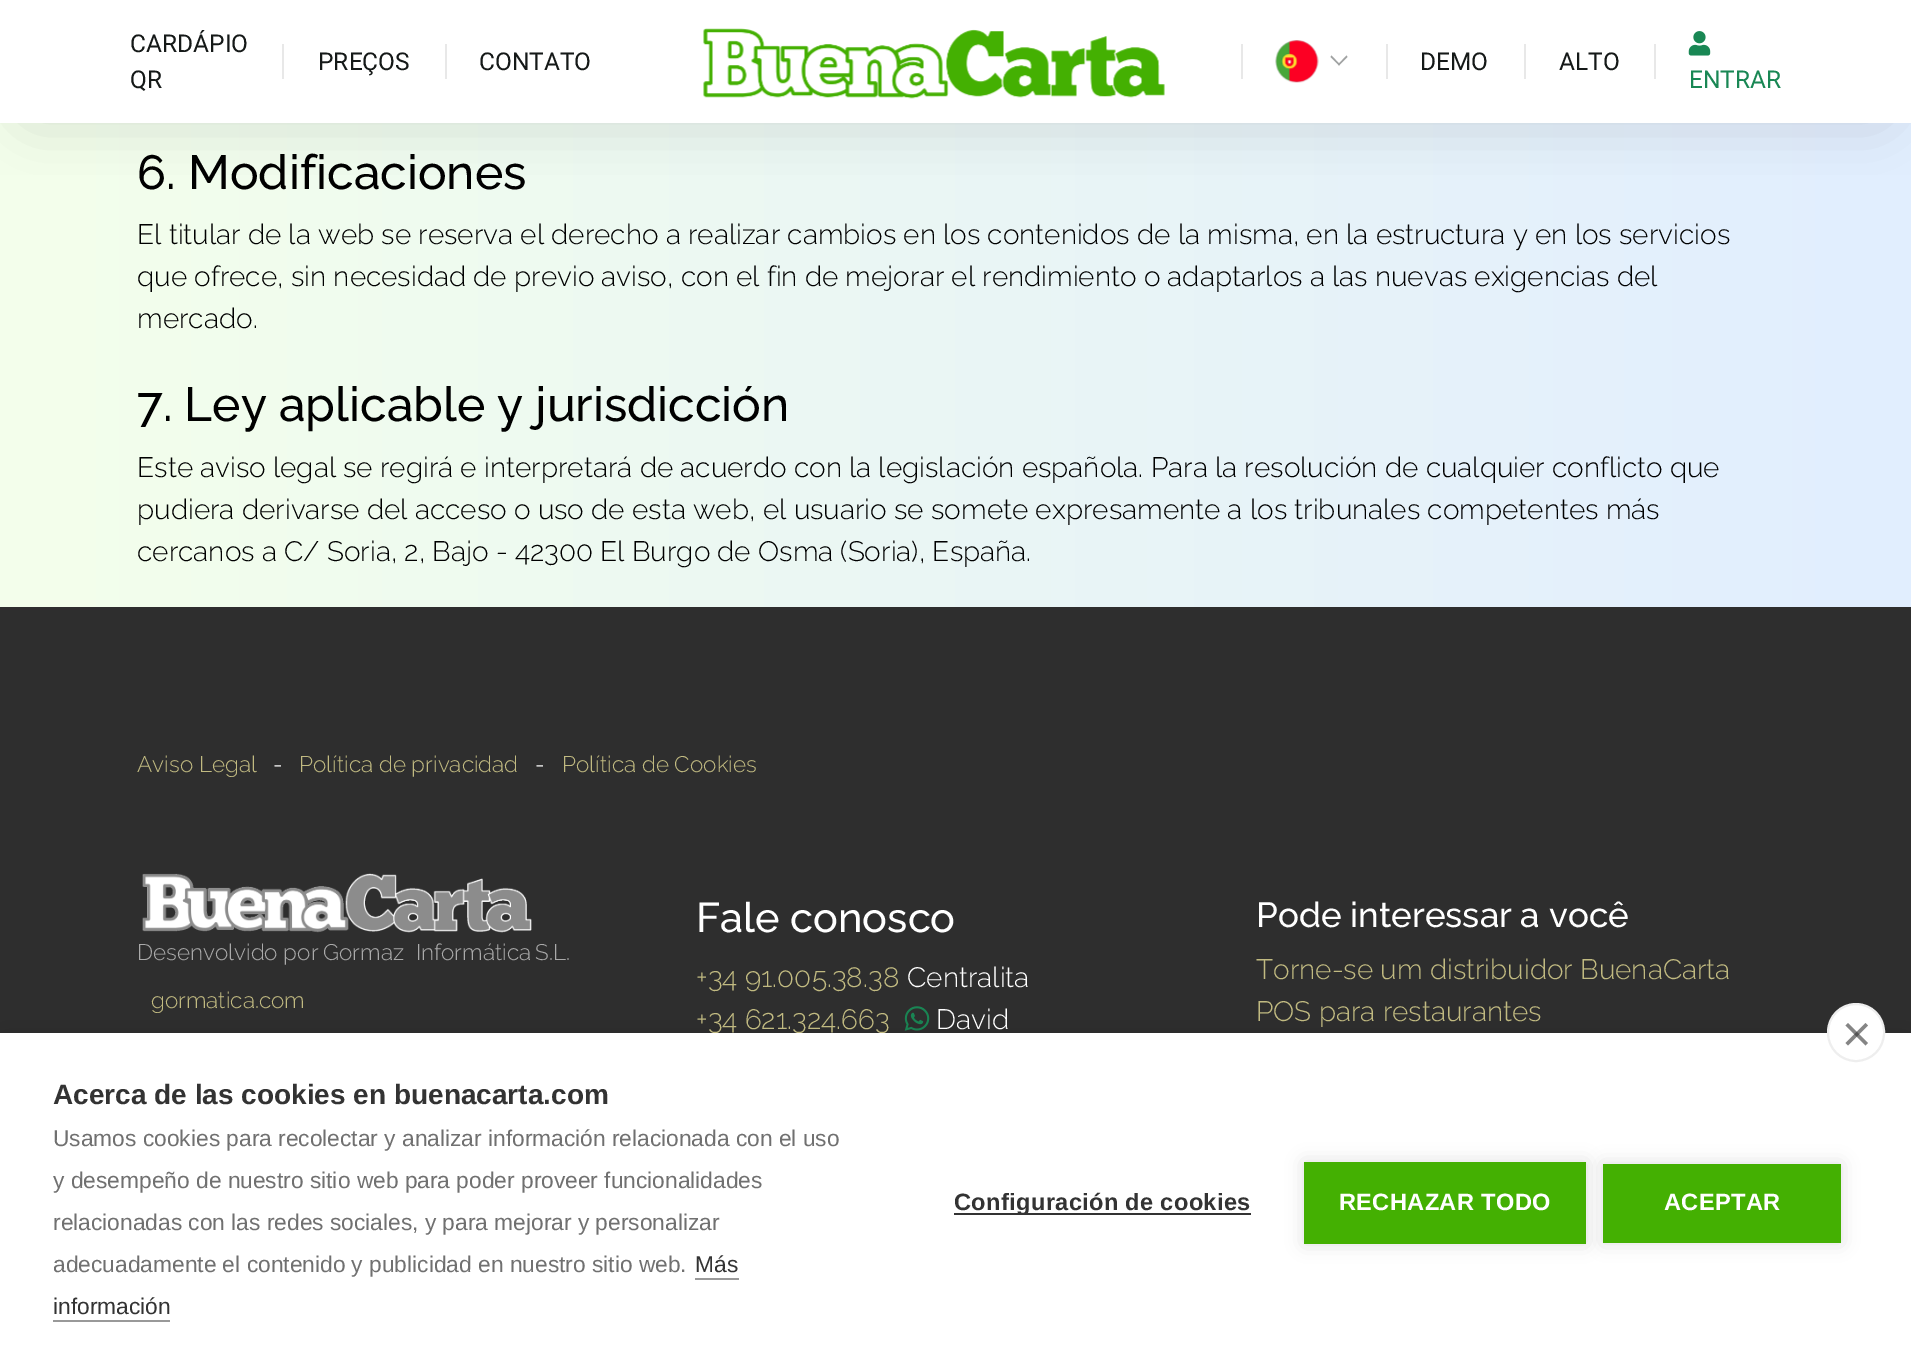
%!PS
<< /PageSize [1911 1372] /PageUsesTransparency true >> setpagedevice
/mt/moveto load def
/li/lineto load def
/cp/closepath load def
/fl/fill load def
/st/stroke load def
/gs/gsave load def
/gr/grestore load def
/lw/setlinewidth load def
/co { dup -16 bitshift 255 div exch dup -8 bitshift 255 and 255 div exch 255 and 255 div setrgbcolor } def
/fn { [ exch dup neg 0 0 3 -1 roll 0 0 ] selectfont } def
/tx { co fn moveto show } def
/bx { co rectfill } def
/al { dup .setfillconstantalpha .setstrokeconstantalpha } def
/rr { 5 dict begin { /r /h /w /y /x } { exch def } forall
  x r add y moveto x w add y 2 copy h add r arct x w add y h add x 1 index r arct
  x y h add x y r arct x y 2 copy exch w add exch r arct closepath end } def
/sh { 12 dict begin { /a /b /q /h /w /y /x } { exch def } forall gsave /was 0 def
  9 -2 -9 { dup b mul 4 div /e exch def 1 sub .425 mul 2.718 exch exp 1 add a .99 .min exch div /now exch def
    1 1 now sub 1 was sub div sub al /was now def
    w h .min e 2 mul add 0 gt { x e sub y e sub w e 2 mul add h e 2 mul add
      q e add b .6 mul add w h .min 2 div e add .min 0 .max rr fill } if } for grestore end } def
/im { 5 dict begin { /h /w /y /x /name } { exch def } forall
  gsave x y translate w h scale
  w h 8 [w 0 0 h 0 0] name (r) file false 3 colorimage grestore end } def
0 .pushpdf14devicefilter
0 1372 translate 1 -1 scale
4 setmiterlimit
0 0 1911 1372 16#FFFFFF bx
gs 0 123 mt 1911 123 li 1911 607 li 0 607 li cp clip newpath
<< /ShadingType 2 /ColorSpace /DeviceRGB /Coords [0 686 1911 686] /Extend [true true] /Function << /FunctionType 2 /Domain [0 1] /C0 [.957 1 .922] /C1 [.882 .933 1] /N 1 >> >> shfill gr
gs
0 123 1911 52 rectclip
16#000000 co
9 44 1893 87 43.5 26 .1 sh
gr
282 44 2 35 16#E8E8E8 bx
445 44 2 35 16#E8E8E8 bx
(media/1.raw) 703 28 462 71 im
1241 44 2 35 16#E8E8E8 bx
(media/2.raw) 1275 40 44 43 im
16#A1A3A3 co
1338 64.5 mt 1346.5 55.5 li 1347.5 57 li 1339 65.5 li cp fl
1330.5 57 mt 1331.5 55.5 li 1340 64.5 li 1339 65.5 li cp fl
1386 44 2 35 16#E8E8E8 bx
1524 44 2 35 16#E8E8E8 bx
1654 44 2 35 16#E8E8E8 bx
(media/3.raw) 1688 31 23 25 im
0 607 1911 426 16#2E2E2E bx
(media/4.raw) 142 873 390 60 im
(media/5.raw) 904 1006 26 25 im
16#000000 co
0 1033 1911 339 0 17.5 .1 sh
(CARDÁPIO) 130 52 /Roboto-Regular 24.5 16#151918 tx
(QR) 130 88 /Roboto-Regular 24.5 16#151918 tx
(PREÇOS) 318 70 /Roboto-Regular 24.5 16#151918 tx
(CONTATO) 479 70 /Roboto-Regular 24.5 16#151918 tx
(DEMO) 1420 70 /Roboto-Regular 24.5 16#151918 tx
(ALTO) 1559 70 /Roboto-Regular 24.5 16#151918 tx
(ENTRAR) 1689 88 /Roboto-Regular 24.5 16#198754 tx
(6. Modificaciones) 137 189 /Raleway-Medium 47.9 16#000000 tx
(El titular de la web se reserva el derecho a realizar cambios en los contenidos de la misma, en la estructura y en los servicios) 137 244 /Raleway-Light 28 16#000000 tx
(que ofrece, sin necesidad de previo aviso, con el fin de mejorar el rendimiento o adaptarlos a las nuevas exigencias del) 137 286 /Raleway-Light 28 16#000000 tx
(mercado.) 137 328 /Raleway-Light 28 16#000000 tx
(7. Ley aplicable y jurisdicción) 137 421 /Raleway-Medium 47.9 16#000000 tx
(Este aviso legal se regirá e interpretará de acuerdo con la legislación española. Para la resolución de cualquier conflicto que) 137 477 /Raleway-Light 28 16#000000 tx
(pudiera derivarse del acceso o uso de esta web, el usuario se somete expresamente a los tribunales competentes más) 137 519 /Raleway-Light 28 16#000000 tx
(cercanos a C/ Soria, 2, Bajo - 42300 El Burgo de Osma \(Soria\), España.) 137 561 /Raleway-Light 28 16#000000 tx
(Aviso Legal) 137 772 /Raleway-Light 22.5 16#C1BA81 tx
(-) 273 772 /Raleway-Light 22.5 16#FFFFFF tx
(Política de privacidad) 299 772 /Raleway-Light 22.5 16#C1BA81 tx
(-) 535 772 /Raleway-Light 22.5 16#FFFFFF tx
(Política de Cookies) 562 772 /Raleway-Light 22.5 16#C1BA81 tx
(Desenvolvido por) 137 960 /Raleway-Light 22.5 16#AAAAAA tx
323 960 mt 6 0 32 (Gormaz Informática) widthshow
(S.L.) 535 960 /Raleway-Light 22.5 16#AAAAAA tx
(gormatica.com) 151 1008 /Raleway-Light 22.5 16#C1BA81 tx
(Fale conosco) 696 932 /Raleway-Medium 41.5 16#FFFFFF tx
(+34 91.005.38.38) 696 987 /Raleway-Light 28 16#C1BA81 tx
(Centralita) 907 987 /Raleway-Light 28 16#FFFFFF tx
(+34 621.324.663) 696 1029 /Raleway-Light 28 16#C1BA81 tx
(David) 936 1029 /Raleway-Light 28 16#FFFFFF tx
(Pode interessar a você) 1256 927 /Raleway-Medium 35 16#FFFFFF tx
(Torne-se um distribuidor BuenaCarta) 1256 979 /Raleway-Light 28 16#C1BA81 tx
(POS para restaurantes) 1256 1021 /Raleway-Light 28 16#C1BA81 tx
0 1033 1911 339 16#FFFFFF bx
1828 1004 56 57 28 rr gs fl gr
16#EEEEEE co
2 lw
st
16#858585 co
1845.5 1043 mt 1865.5 1023 li 1868 1025.5 li 1848 1045.5 li cp fl
0.6 al
16#333333 co
1848 1023 mt 1868 1043 li 1865.5 1045.5 li 1845.5 1025.5 li cp fl
1 al
(Acerca de las cookies en buenacarta.com) 53 1104 /LiberationSans-Bold 28 16#333333 tx
(Usamos cookies para recolectar y analizar información relacionada con el uso) 53 1146 /LiberationSans-Regular 22.75 16#707070 tx
(y desempeño de nuestro sitio web para poder proveer funcionalidades) 53 1188 /LiberationSans-Regular 22.75 16#707070 tx
(relacionadas con las redes sociales, y para mejorar y personalizar) 53 1230 /LiberationSans-Regular 22.75 16#707070 tx
(adecuadamente el contenido y publicidad en nuestro sitio web.) 53 1272 /LiberationSans-Regular 22.75 16#707070 tx
(Más) 695 1272 /LiberationSans-Regular 22.75 16#333333 tx
695 1278 44 2 16#999999 bx
(información) 53 1314 /LiberationSans-Regular 22.75 16#333333 tx
53 1320 117 2 16#999999 bx
954 1213 297 2 16#333333 bx
/LiberationSans-Bold 23.6 fn
954 1210 mt .35 0 (Configuración de cookies) ashow
16#000000 co
1304 1162 282 82 0 9 .12 sh
1304 1162 282 82 16#44B002 bx
16#FFFFFF co
1339 1210 mt .35 0 (RECHAZAR TODO) ashow
16#000000 co
1603 1164 238 79 0 9 .12 sh
1603 1164 238 79 16#44B002 bx
16#FFFFFF co
1664 1210 mt .35 0 (ACEPTAR) ashow
.poppdf14devicefilter showpage
